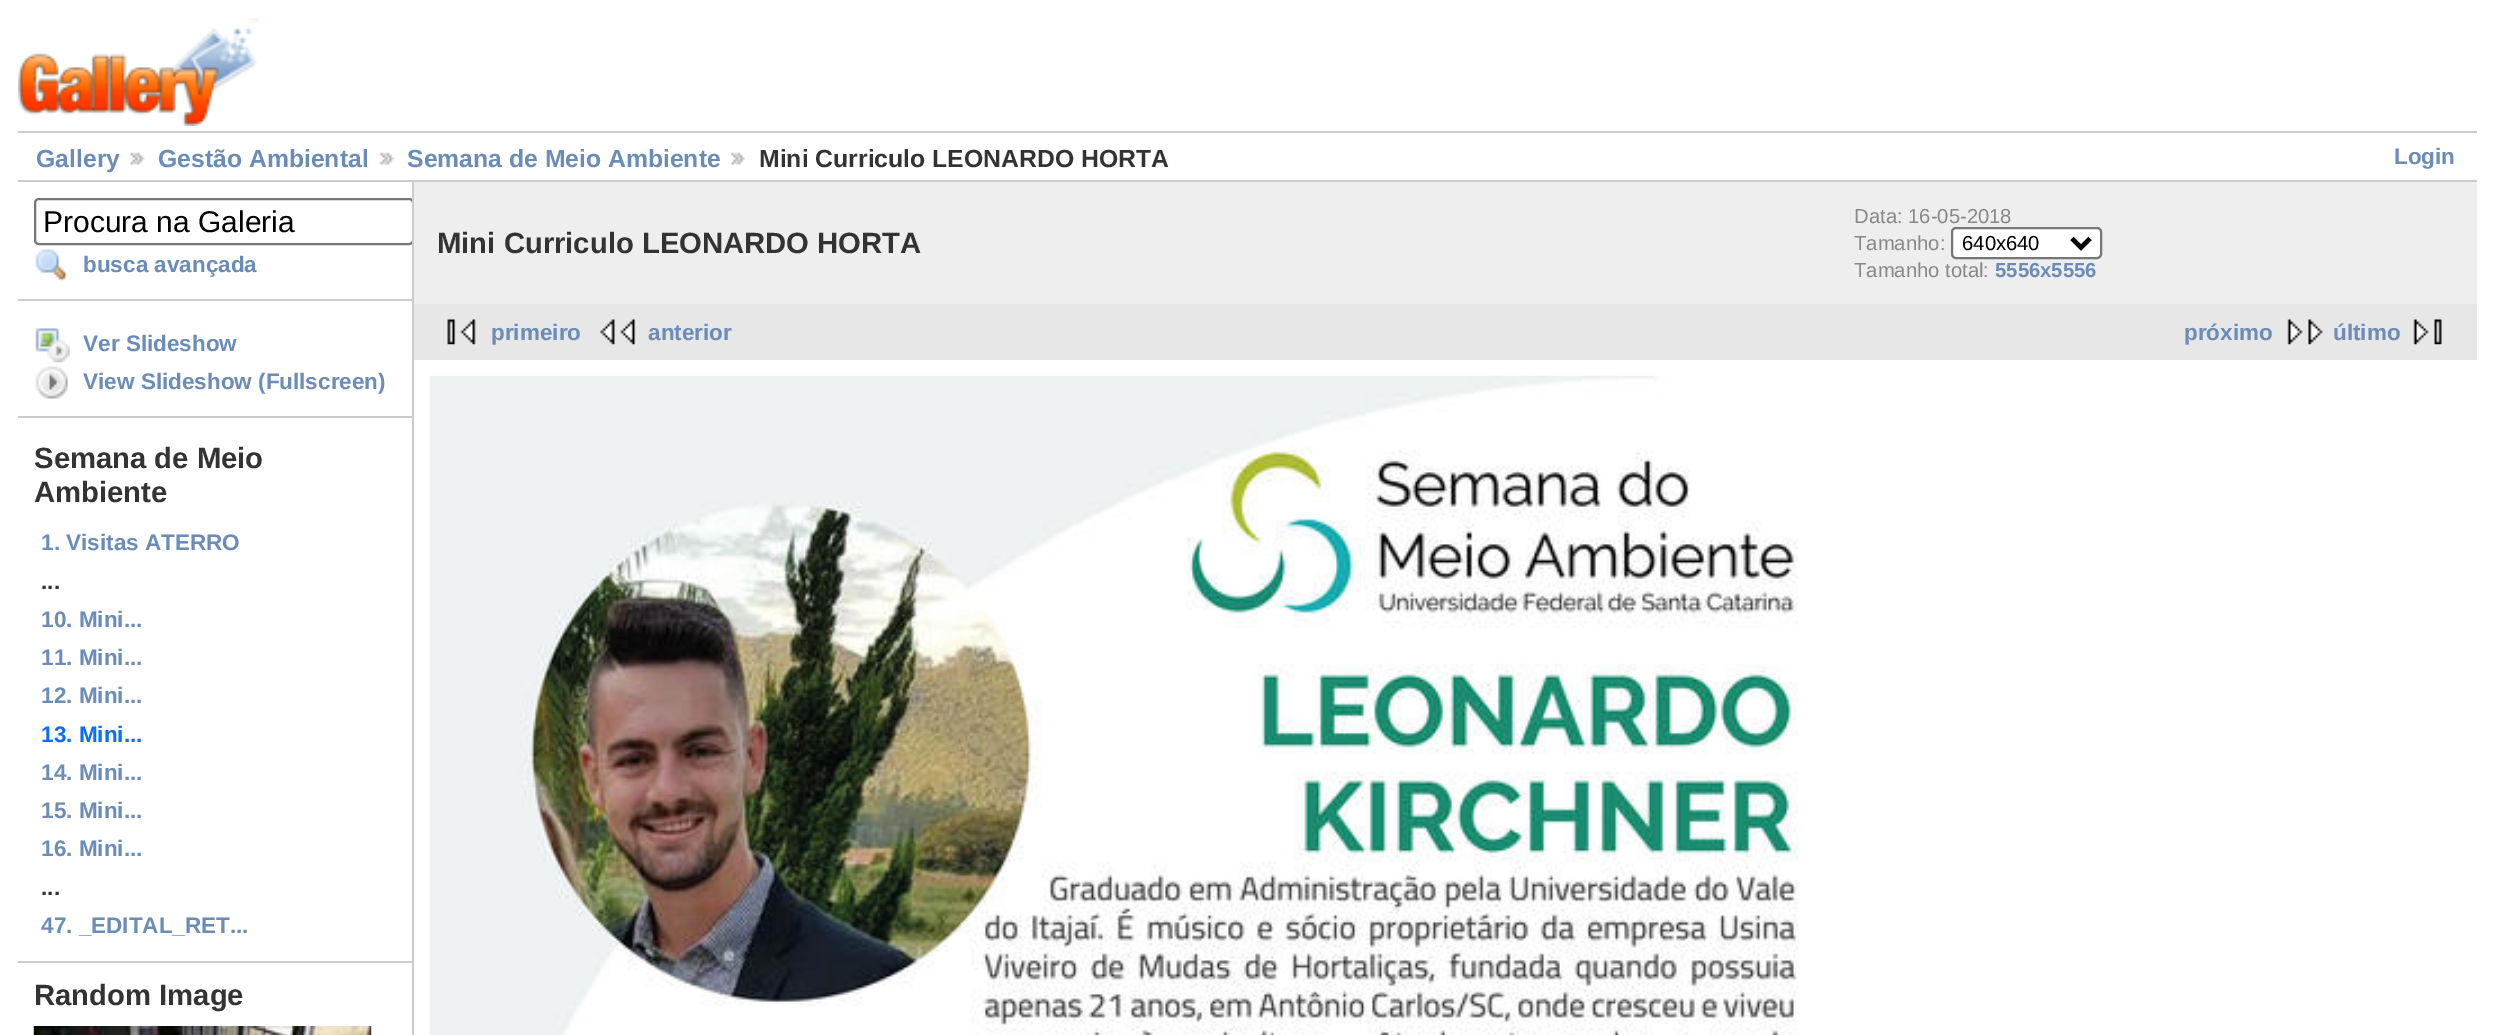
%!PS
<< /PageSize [2494 1035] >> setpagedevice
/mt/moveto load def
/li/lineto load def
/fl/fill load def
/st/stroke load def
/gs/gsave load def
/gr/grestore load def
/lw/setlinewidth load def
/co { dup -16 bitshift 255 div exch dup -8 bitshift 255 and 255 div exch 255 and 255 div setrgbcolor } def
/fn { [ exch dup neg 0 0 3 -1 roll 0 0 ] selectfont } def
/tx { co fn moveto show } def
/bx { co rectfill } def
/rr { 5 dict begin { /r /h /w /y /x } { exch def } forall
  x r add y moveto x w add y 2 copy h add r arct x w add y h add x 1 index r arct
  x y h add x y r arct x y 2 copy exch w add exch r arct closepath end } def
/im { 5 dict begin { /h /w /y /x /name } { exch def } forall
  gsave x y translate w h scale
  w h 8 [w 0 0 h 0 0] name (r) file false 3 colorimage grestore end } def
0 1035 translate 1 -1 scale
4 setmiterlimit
0 0 2494 1035 16#FFFFFF bx
(media/1.raw) 18 18 241 108 im
18 131 2459 2 16#CCCCCC bx
18 180 2459 2 16#CCCCCC bx
(media/2.raw) 130 152 15 13 im
(media/3.raw) 379 152 16 13 im
(media/3.raw) 730 152 16 13 im
412 182 2 853 16#CCCCCC bx
18 299 394 2 16#CCCCCC bx
gs
18 182 394 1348 rectclip
16#767676 co
2 lw
35 199 378 45 4 rr st
gr
(media/4.raw) 35 249 31 33 im
18 416 394 2 16#CCCCCC bx
(media/5.raw) 35 328 35 35 im
(media/6.raw) 35 366 34 33 im
18 961 394 2 16#CCCCCC bx
(media/7.raw) 33 1026 339 9 im
414 182 2063 122 16#EEEEEE bx
16#FFFFFF co
1952 228 149 30 4 rr gs fl gr
16#767676 co
2 lw
st
16#000000 co
4.5 lw
2072 238.5 mt 2081 247.5 li 2090 238.5 li st
414 304 2063 56 16#E7E7E7 bx
(media/8.raw) 447 319 29 26 im
(media/9.raw) 600 319 36 26 im
(media/10.raw) 2287 319 36 26 im
(media/11.raw) 2413 319 29 26 im
(media/12.raw) 429 375 1370 660 im
(Gallery) 36 167 /LiberationSans-Bold 24.75 16#6B8CB7 tx
(Gestão Ambiental) 158 167 /LiberationSans-Bold 24.75 16#6B8CB7 tx
(Semana de Meio Ambiente) 407 167 /LiberationSans-Bold 24.75 16#6B8CB7 tx
(Mini Curriculo LEONARDO HORTA) 759 167 /LiberationSans-Bold 24.75 16#333333 tx
(Login) 2394 164 /LiberationSans-Bold 22.5 16#6B8CB7 tx
(Procura na Galeria) 43 232 /LiberationSans-Regular 30 16#000000 tx
(busca avançada) 83 272 /LiberationSans-Bold 22.5 16#6B8CB7 tx
(Ver Slideshow) 83 351 /LiberationSans-Bold 22.5 16#6B8CB7 tx
(View Slideshow \(Fullscreen\)) 83 389 /LiberationSans-Bold 22.5 16#6B8CB7 tx
(Semana de Meio) 34 468 /LiberationSans-Bold 29.25 16#333333 tx
(Ambiente) 34 502 /LiberationSans-Bold 29.25 16#333333 tx
(1. Visitas ATERRO) 41 550 /LiberationSans-Bold 22.5 16#6B8CB7 tx
(...) 41 589 /LiberationSans-Bold 22.5 16#333333 tx
(10. Mini...) 41 627 /LiberationSans-Bold 22.5 16#6B8CB7 tx
(11. Mini...) 41 665 /LiberationSans-Bold 22.5 16#6B8CB7 tx
(12. Mini...) 41 703 /LiberationSans-Bold 22.5 16#6B8CB7 tx
(13. Mini...) 41 742 /LiberationSans-Bold 22.5 16#0B6CFF tx
(14. Mini...) 41 780 /LiberationSans-Bold 22.5 16#6B8CB7 tx
(15. Mini...) 41 818 /LiberationSans-Bold 22.5 16#6B8CB7 tx
(16. Mini...) 41 856 /LiberationSans-Bold 22.5 16#6B8CB7 tx
(...) 41 895 /LiberationSans-Bold 22.5 16#333333 tx
(47. _EDITAL_RET...) 41 933 /LiberationSans-Bold 22.5 16#6B8CB7 tx
(Random Image) 34 1005 /LiberationSans-Bold 29.25 16#333333 tx
(Mini Curriculo LEONARDO HORTA) 437 253 /LiberationSans-Bold 29.25 16#333333 tx
(Data: 16-05-2018) 1854 223 /LiberationSans-Regular 20.25 16#888888 tx
(Tamanho:) 1854 250 /LiberationSans-Regular 20.25 16#888888 tx
(640x640) 1962 250 /LiberationSans-Regular 20.25 16#000000 tx
(Tamanho total:) 1854 277 /LiberationSans-Regular 20.25 16#888888 tx
(5556x5556) 1995 277 /LiberationSans-Bold 20.25 16#6B8CB7 tx
(primeiro) 491 340 /LiberationSans-Bold 22.5 16#6B8CB7 tx
(anterior) 648 340 /LiberationSans-Bold 22.5 16#6B8CB7 tx
(próximo) 2184 340 /LiberationSans-Bold 22.5 16#6B8CB7 tx
(último) 2333 340 /LiberationSans-Bold 22.5 16#6B8CB7 tx
showpage
